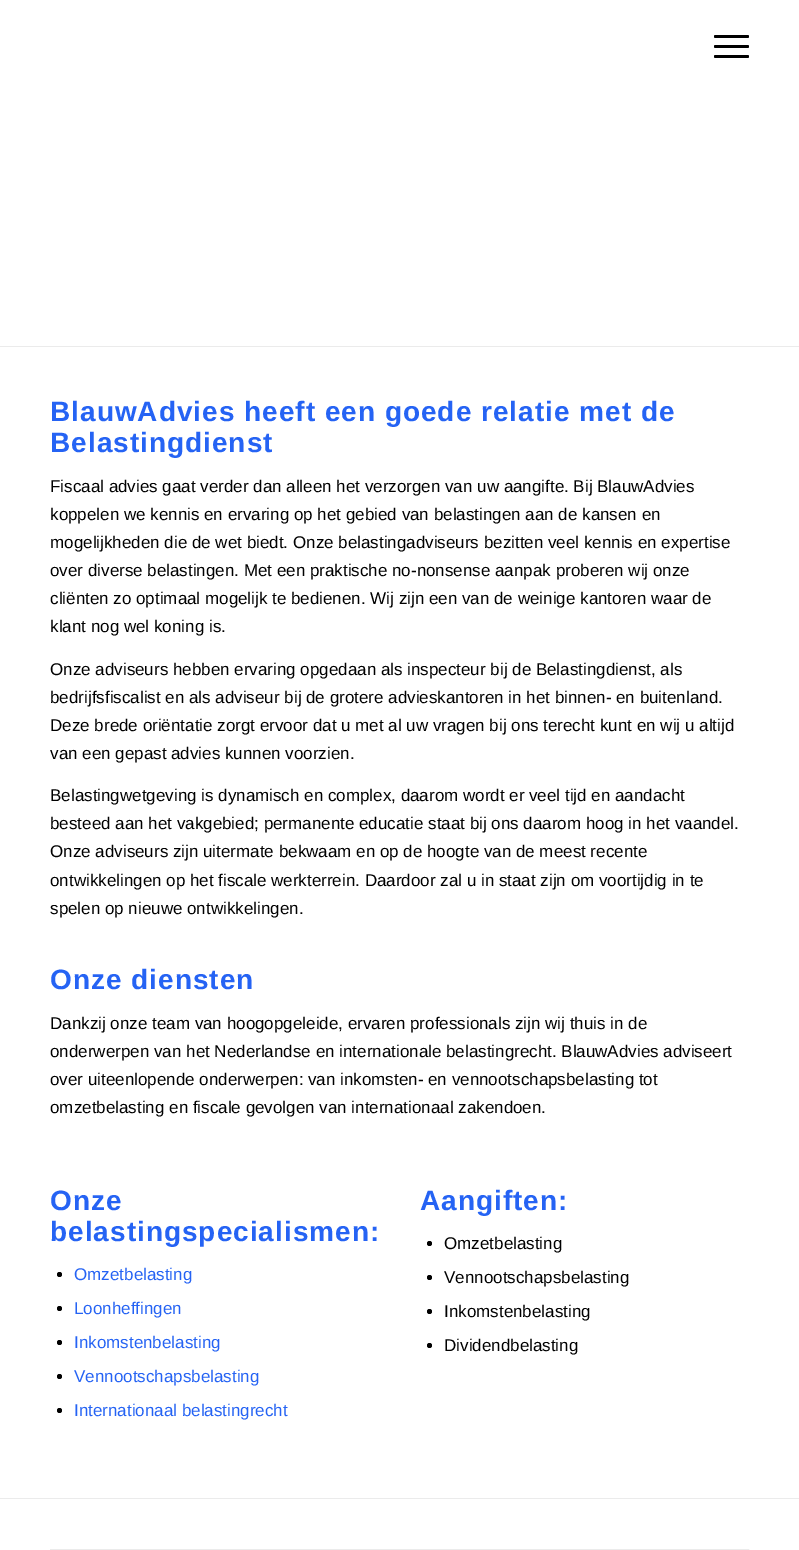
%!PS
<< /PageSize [799 1550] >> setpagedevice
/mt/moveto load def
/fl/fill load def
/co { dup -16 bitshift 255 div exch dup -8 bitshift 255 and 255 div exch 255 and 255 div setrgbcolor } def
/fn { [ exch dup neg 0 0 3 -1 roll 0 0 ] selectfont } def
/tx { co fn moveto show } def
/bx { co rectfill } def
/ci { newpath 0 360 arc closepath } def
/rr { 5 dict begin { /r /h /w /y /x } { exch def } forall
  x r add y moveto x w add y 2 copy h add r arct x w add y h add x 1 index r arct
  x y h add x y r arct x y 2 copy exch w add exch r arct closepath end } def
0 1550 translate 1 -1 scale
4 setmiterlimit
0 0 799 1550 16#FFFFFF bx
16#000000 co
714 45 35 3 1.5 rr fl
714 35 35 3 1.5 rr fl
714 55 35 3 1.5 rr fl
0 346 799 1 16#EBEBEB bx
16#000000 co
59.5 1274.5 2.5 ci fl
59.5 1308.5 2.5 ci fl
59.5 1342.5 2.5 ci fl
59.5 1376.5 2.5 ci fl
59.5 1410.5 2.5 ci fl
429.5 1243.5 2.5 ci fl
429.5 1277.5 2.5 ci fl
429.5 1311.5 2.5 ci fl
429.5 1345.5 2.5 ci fl
0 1498 799 1 16#EBEBEB bx
50.5 1549.5 698 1 rectstroke
/LiberationSans-Bold 28 fn
16#2563F4 co
50 421 mt 1 0 (BlauwAdvies heeft een goede relatie met de) ashow
50 452 mt 1 0 (Belastingdienst) ashow
(Fiscaal advies gaat verder dan alleen het verzorgen van uw aangifte. Bij BlauwAdvies) 50 492 /LiberationSans-Regular 17 16#000000 tx
(koppelen we kennis en ervaring op het gebied van belastingen aan de kansen en) 50 520 /LiberationSans-Regular 17 16#000000 tx
(mogelijkheden die de wet biedt. Onze belastingadviseurs bezitten veel kennis en expertise) 50 548 /LiberationSans-Regular 17 16#000000 tx
(over diverse belastingen. Met een praktische no-nonsense aanpak proberen wij onze) 50 576 /LiberationSans-Regular 17 16#000000 tx
(cliënten zo optimaal mogelijk te bedienen. Wij zijn een van de weinige kantoren waar de) 50 604 /LiberationSans-Regular 17 16#000000 tx
(klant nog wel koning is.) 50 632 /LiberationSans-Regular 17 16#000000 tx
(Onze adviseurs hebben ervaring opgedaan als inspecteur bij de Belastingdienst, als) 50 675 /LiberationSans-Regular 17 16#000000 tx
(bedrijfsfiscalist en als adviseur bij de grotere advieskantoren in het binnen- en buitenland.) 50 703 /LiberationSans-Regular 17 16#000000 tx
(Deze brede oriëntatie zorgt ervoor dat u met al uw vragen bij ons terecht kunt en wij u altijd) 50 731 /LiberationSans-Regular 17 16#000000 tx
(van een gepast advies kunnen voorzien.) 50 759 /LiberationSans-Regular 17 16#000000 tx
(Belastingwetgeving is dynamisch en complex, daarom wordt er veel tijd en aandacht) 50 801 /LiberationSans-Regular 17 16#000000 tx
(besteed aan het vakgebied; permanente educatie staat bij ons daarom hoog in het vaandel.) 50 829 /LiberationSans-Regular 17 16#000000 tx
(Onze adviseurs zijn uitermate bekwaam en op de hoogte van de meest recente) 50 857 /LiberationSans-Regular 17 16#000000 tx
(ontwikkelingen op het fiscale werkterrein. Daardoor zal u in staat zijn om voortijdig in te) 50 886 /LiberationSans-Regular 17 16#000000 tx
(spelen op nieuwe ontwikkelingen.) 50 914 /LiberationSans-Regular 17 16#000000 tx
/LiberationSans-Bold 28 fn
16#2563F4 co
50 989 mt 1 0 (Onze diensten) ashow
(Dankzij onze team van hoogopgeleide, ervaren professionals zijn wij thuis in de) 50 1029 /LiberationSans-Regular 17 16#000000 tx
(onderwerpen van het Nederlandse en internationale belastingrecht. BlauwAdvies adviseert) 50 1057 /LiberationSans-Regular 17 16#000000 tx
(over uiteenlopende onderwerpen: van inkomsten- en vennootschapsbelasting tot) 50 1085 /LiberationSans-Regular 17 16#000000 tx
(omzetbelasting en fiscale gevolgen van internationaal zakendoen.) 50 1113 /LiberationSans-Regular 17 16#000000 tx
/LiberationSans-Bold 28 fn
16#2563F4 co
50 1210 mt 1 0 (Onze) ashow
50 1241 mt 1 0 (belastingspecialismen:) ashow
(Omzetbelasting) 74 1280 /LiberationSans-Regular 17 16#2563F4 tx
(Loonheffingen) 74 1314 /LiberationSans-Regular 17 16#2563F4 tx
(Inkomstenbelasting) 74 1348 /LiberationSans-Regular 17 16#2563F4 tx
(Vennootschapsbelasting) 74 1382 /LiberationSans-Regular 17 16#2563F4 tx
(Internationaal belastingrecht) 74 1416 /LiberationSans-Regular 17 16#2563F4 tx
/LiberationSans-Bold 28 fn
420 1210 mt 1 0 (Aangiften:) ashow
(Omzetbelasting) 444 1249 /LiberationSans-Regular 17 16#000000 tx
(Vennootschapsbelasting) 444 1283 /LiberationSans-Regular 17 16#000000 tx
(Inkomstenbelasting) 444 1317 /LiberationSans-Regular 17 16#000000 tx
(Dividendbelasting) 444 1351 /LiberationSans-Regular 17 16#000000 tx
showpage
